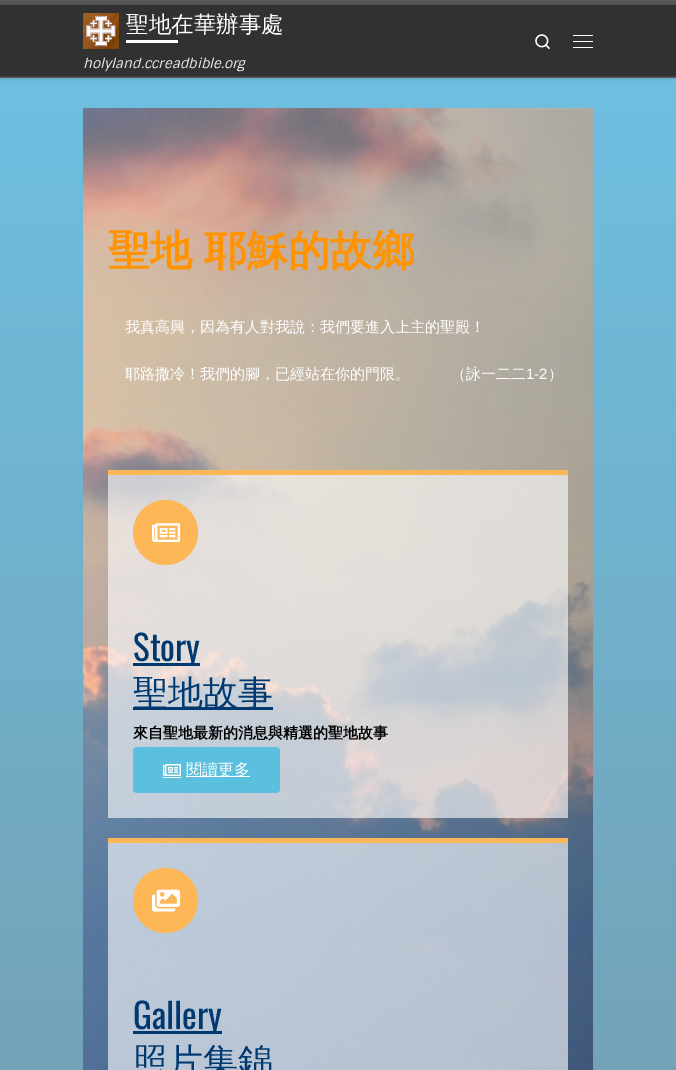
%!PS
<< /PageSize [676 1070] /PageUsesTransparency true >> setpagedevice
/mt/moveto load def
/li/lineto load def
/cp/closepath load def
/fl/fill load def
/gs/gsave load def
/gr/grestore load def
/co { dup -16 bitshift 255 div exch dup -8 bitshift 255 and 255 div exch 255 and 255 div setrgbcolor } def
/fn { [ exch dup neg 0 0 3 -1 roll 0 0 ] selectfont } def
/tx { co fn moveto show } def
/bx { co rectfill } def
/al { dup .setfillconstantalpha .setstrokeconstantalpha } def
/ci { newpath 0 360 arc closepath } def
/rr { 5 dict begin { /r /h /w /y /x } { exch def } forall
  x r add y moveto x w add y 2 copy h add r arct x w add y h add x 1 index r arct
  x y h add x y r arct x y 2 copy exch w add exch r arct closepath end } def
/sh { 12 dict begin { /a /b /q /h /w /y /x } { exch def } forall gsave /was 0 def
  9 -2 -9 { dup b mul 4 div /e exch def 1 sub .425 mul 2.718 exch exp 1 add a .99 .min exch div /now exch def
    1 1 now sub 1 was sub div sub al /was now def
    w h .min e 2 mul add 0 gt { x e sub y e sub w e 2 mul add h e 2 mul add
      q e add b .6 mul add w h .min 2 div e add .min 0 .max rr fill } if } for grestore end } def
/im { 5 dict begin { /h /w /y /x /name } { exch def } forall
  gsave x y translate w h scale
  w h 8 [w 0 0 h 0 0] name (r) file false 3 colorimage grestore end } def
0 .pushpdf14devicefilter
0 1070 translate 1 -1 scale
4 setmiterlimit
0 0 676 1070 16#FFFFFF bx
gs 0 78 mt 676 78 li 676 1070 li 0 1070 li cp clip newpath
<< /ShadingType 2 /ColorSpace /DeviceRGB /Coords [338 0 338 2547] /Extend [true true] /Function << /FunctionType 2 /Domain [0 1] /C0 [.431 .757 .894] /C1 [.478 .478 .478] /N 1 >> >> shfill gr
16#666666 co
0 2 676 78 0 1 .08 sh
0 5 676 71 16#313131 bx
0 0 676 5 16#5A5A5A bx
0 77 676 1 16#606060 bx
gs
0 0 mt 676 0 li 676 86 li 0 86 li cp 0 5 mt 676 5 li 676 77 li 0 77 li cp eoclip newpath
16#000000 co
0 5 676 72 0 2.5 .2 sh
gr
(media/1.raw) 83 13 36 36 im
126 40 52 3 16#FFFFFF bx
(media/2.raw) 535 34 15 16 im
573 35 20 1 .5 rr fl
573 41 20 1 .5 rr fl
573 47 20 1 .5 rr fl
0 76 676 1 16#404040 bx
(media/3.raw) 83 108 510 962 im
0.61 al
108 475 460 343 16#FFFFFF bx
1 al
108 470 460 5 16#FDB757 bx
165.5 532.5 32.5 ci fl
(media/4.raw) 151 523 30 19 im
133 663 67 3 16#003970 bx
133 707 140 3 16#003970 bx
16#5BC0DE co
133 747 147 46 4 rr fl
(media/5.raw) 163 764 18 12 im
163 777 18 1 16#FFFFFF bx
186 776 64 1 16#FFFFFF bx
0.61 al
108 843 460 227 16#FFFFFF bx
1 al
108 838 460 5 16#FDB757 bx
165.5 900.5 32.5 ci fl
(media/6.raw) 151 889 30 23 im
133 1031 89 3 16#003970 bx
(聖地在華辦事處) 126 32 /WenQuanYiZenHei-Medium 22.5 16#FFFFFF tx
(holyland.ccreadbible.org) 83 68 /Sintony-Italic 13.5 16#ECEEEF tx
/WenQuanYiZenHei-Bold 42 fn
16#FF9300 co
108 265 mt -1 0 32 (聖地 耶穌的故鄉) widthshow
(我真高興，因為有人對我說：我們要進入上主的聖殿！) 125 332 /WenQuanYiZenHei-Medium 15 16#FFFFFF tx
(耶路撒冷！我們的腳，已經站在你的門限。) 125 379 /WenQuanYiZenHei-Medium 15 16#FFFFFF tx
(（詠一二二) 451 379 /WenQuanYiZenHei-Medium 15 16#FFFFFF tx
(1-2) 526 379 /LiberationSans-Regular 15 16#FFFFFF tx
(）) 548 379 /WenQuanYiZenHei-Medium 15 16#FFFFFF tx
(Story) 133 661 /Oswald-Regular 35 16#003970 tx
(聖地故事) 133 705 /WenQuanYiZenHei-Medium 35 16#003970 tx
(來自聖地最新的消息與精選的聖地故事) 133 738 /WenQuanYiZenHei-Bold 15 16#000000 tx
(閱讀更多) 186 775 /WenQuanYiZenHei-Medium 16 16#FFFFFF tx
(Gallery) 133 1029 /Oswald-Regular 35 16#003970 tx
(照片集錦) 133 1073 /WenQuanYiZenHei-Medium 35 16#003970 tx
.poppdf14devicefilter showpage
